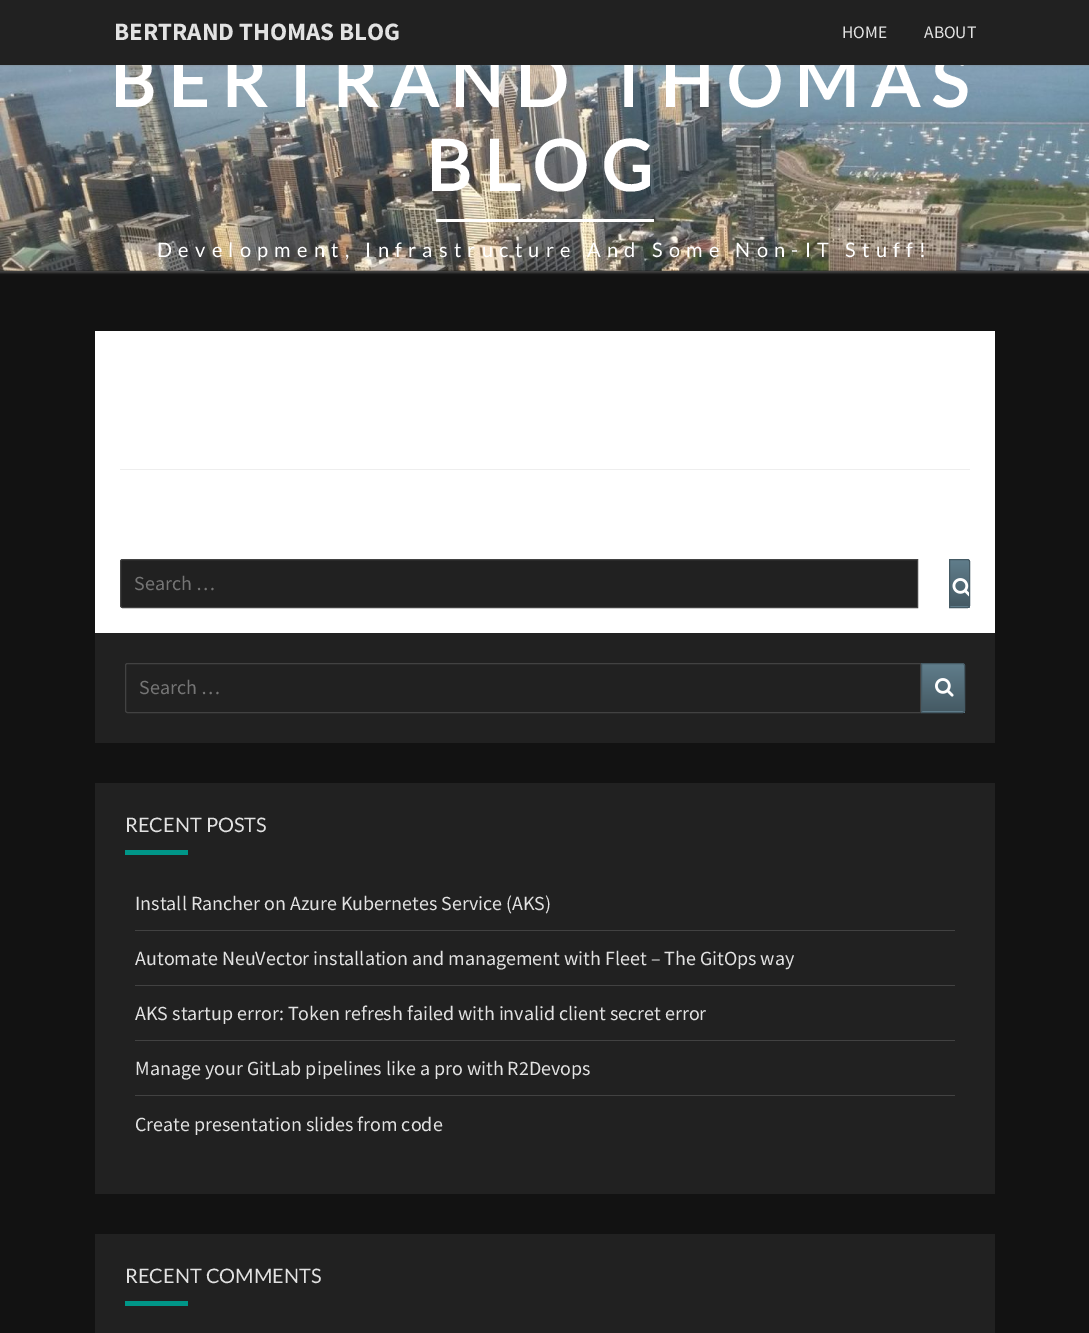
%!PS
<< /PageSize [1089 1333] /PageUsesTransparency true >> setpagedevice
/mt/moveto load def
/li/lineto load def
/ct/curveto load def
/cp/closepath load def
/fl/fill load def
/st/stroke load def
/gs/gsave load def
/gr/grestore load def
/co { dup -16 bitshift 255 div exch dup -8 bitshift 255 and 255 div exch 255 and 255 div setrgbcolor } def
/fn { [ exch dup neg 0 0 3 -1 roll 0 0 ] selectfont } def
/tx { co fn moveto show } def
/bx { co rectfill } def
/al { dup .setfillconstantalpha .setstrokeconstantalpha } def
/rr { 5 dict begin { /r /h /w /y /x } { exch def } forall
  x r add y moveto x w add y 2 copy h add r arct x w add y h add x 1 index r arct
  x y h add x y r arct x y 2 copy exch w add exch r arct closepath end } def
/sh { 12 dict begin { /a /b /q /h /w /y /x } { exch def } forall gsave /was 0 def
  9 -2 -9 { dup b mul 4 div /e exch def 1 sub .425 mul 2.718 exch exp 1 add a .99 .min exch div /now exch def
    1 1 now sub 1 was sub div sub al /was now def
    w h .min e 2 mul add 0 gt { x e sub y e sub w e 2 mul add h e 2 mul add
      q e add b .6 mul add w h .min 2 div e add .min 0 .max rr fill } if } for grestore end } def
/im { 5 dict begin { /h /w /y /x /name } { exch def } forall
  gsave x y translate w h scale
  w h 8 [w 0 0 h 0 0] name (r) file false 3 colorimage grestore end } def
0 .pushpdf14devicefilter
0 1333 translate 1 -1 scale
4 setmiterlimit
0 0 1089 1333 16#121212 bx
16#B6B6B6 co
-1 31 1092 242 0 1 .3 sh
(media/1.raw) 0 65 1089 206 im
16#646464 co
0 1 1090 65 0 .5 .2 sh
436 219 218 3 16#FFFFFF bx
95 331 900 302 16#FFFFFF bx
120 469 850 1 16#EEEEEE bx
16#212121 co
122.5 559.5 mt 917.5 559.5 li 917.5 607.5 li 122.5 607.5 li 121.5 607.5 120.5 606.5 120.5 605.5 ct 120.5 561.5 li 120.5 560.5 121.5 559.5 122.5 559.5 ct cp gs fl gr
16#424242 co
st
gs 950 560 mt 970 560 li 970 606 li 950 606 li cp clip newpath
<< /ShadingType 2 /ColorSpace /DeviceRGB /Coords [959 560 959 606] /Extend [true true] /Function << /FunctionType 2 /Domain [0 1] /C0 [.376 .49 .545] /C1 [.271 .353 .392] /N 1 >> >> shfill gr
gs
949 559 mt 967.5 559 li 969 559 970 560 970 561.5 ct 970 605.5 li 970 607 969 608 967.5 608 ct 949 608 li cp clip newpath
gs 949 606 mt 970 606 li 970 608 li 949 608 li cp clip newpath
<< /ShadingType 2 /ColorSpace /DeviceRGB /Coords [959 606 959 653] /Extend [true true] /Function << /FunctionType 2 /Domain [0 1] /C0 [.376 .49 .545] /C1 [.271 .353 .392] /N 1 >> >> shfill gr
gr
16#455A64 co
949.5 559.5 mt 967.5 559.5 li 968.5 559.5 969.5 560.5 969.5 561.5 ct 969.5 605.5 li 969.5 606.5 968.5 607.5 967.5 607.5 ct 949.5 607.5 li cp st
(media/2.raw) 952 578 17 19 im
95 633 900 110 16#212121 bx
16#424242 co
127.5 663.5 mt 920.5 663.5 li 920.5 712.5 li 127.5 712.5 li 126.5 712.5 125.5 711.5 125.5 710.5 ct 125.5 665.5 li 125.5 664.5 126.5 663.5 127.5 663.5 ct cp st
gs 922 664 mt 965 664 li 965 711 li 922 711 li cp clip newpath
<< /ShadingType 2 /ColorSpace /DeviceRGB /Coords [943 664 943 711] /Extend [true true] /Function << /FunctionType 2 /Domain [0 1] /C0 [.376 .49 .545] /C1 [.271 .353 .392] /N 1 >> >> shfill gr
gs
921 663 mt 962.5 663 li 964 663 965 664 965 665.5 ct 965 710.5 li 965 712 964 713 962.5 713 ct 921 713 li cp clip newpath
gs 921 711 mt 965 711 li 965 713 li 921 713 li cp clip newpath
<< /ShadingType 2 /ColorSpace /DeviceRGB /Coords [943 711 943 759] /Extend [true true] /Function << /FunctionType 2 /Domain [0 1] /C0 [.376 .49 .545] /C1 [.271 .353 .392] /N 1 >> >> shfill gr
gr
16#455A64 co
921.5 663.5 mt 962.5 663.5 li 963.5 663.5 964.5 664.5 964.5 665.5 ct 964.5 710.5 li 964.5 711.5 963.5 712.5 962.5 712.5 ct 921.5 712.5 li cp st
(media/3.raw) 935 678 19 19 im
95 783 900 411 16#212121 bx
125 850 63 5 16#009688 bx
135 930 820 1 16#424242 bx
135 985 820 1 16#424242 bx
135 1040 820 1 16#424242 bx
135 1095 820 1 16#424242 bx
95 1234 900 99 16#212121 bx
125 1301 63 5 16#009688 bx
/Lato-Bold 70 fn
16#FFFFFF co
110 107 mt 12.5 0 (BERTRAND THOMAS) ashow
0 0 1089 65 16#212121 bx
(ABOUT) 924 38 /SourceSansPro-Regular 17.5 16#E2E2E2 tx
(HOME) 842 38 /SourceSansPro-Regular 17.5 16#E2E2E2 tx
(BERTRAND THOMAS BLOG) 114 40 /SourceSansPro-Bold 25 16#E2E2E2 tx
/Lato-Bold 70 fn
16#FFFFFF co
426 191 mt 12.5 0 (BLOG) ashow
/Lato-Regular 20 fn
157 257 mt 6.25 0 (Development, Infrastructure And Some Non-IT Stuff!) ashow
(Search …) 134 590 /SourceSansPro-Regular 20 16#757575 tx
(Search …) 139 694 /SourceSansPro-Regular 20 16#757575 tx
(RECENT POSTS) 125 832 /Lato-Regular 20 16#E2E2E2 tx
(Install Rancher on Azure Kubernetes Service \(AKS\)) 135 910 /SourceSansPro-Regular 20 16#E2E2E2 tx
(Automate NeuVector installation and management with Fleet – The GitOps way) 135 965 /SourceSansPro-Regular 20 16#E2E2E2 tx
(AKS startup error: Token refresh failed with invalid client secret error) 135 1020 /SourceSansPro-Regular 20 16#E2E2E2 tx
(Manage your GitLab pipelines like a pro with R2Devops) 135 1075 /SourceSansPro-Regular 20 16#E2E2E2 tx
(Create presentation slides from code) 135 1131 /SourceSansPro-Regular 20 16#E2E2E2 tx
(RECENT COMMENTS) 125 1283 /Lato-Regular 20 16#E2E2E2 tx
.poppdf14devicefilter showpage
